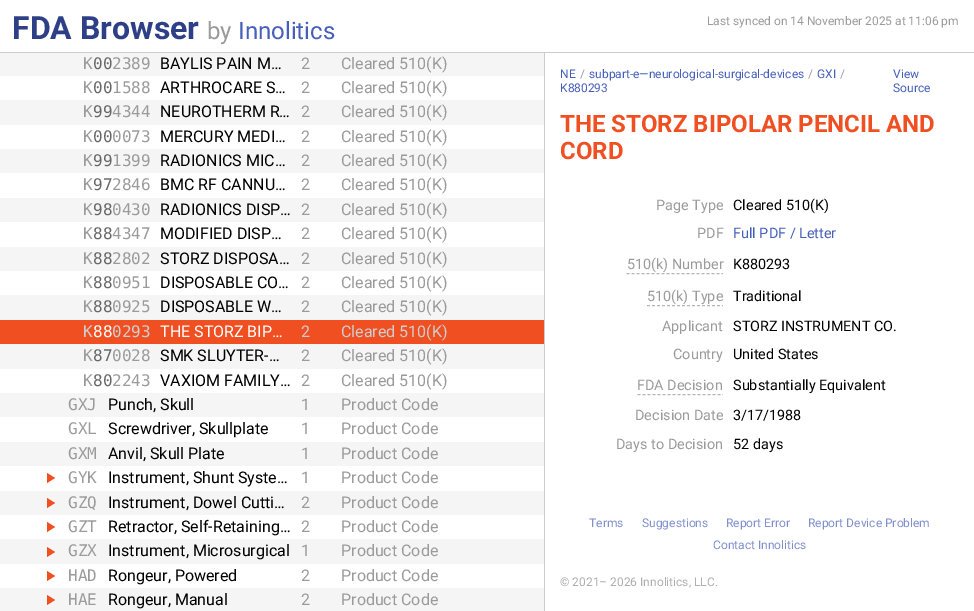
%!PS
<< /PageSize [974 611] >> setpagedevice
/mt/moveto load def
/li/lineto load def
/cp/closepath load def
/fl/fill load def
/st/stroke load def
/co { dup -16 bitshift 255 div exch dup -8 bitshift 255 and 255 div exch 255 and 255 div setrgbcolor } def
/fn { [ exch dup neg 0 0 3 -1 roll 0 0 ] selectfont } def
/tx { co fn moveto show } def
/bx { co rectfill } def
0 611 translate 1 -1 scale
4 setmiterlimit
0 0 974 611 16#FFFFFF bx
0 52 974 1 16#CCCCCC bx
544 53 1 558 16#CCCCCC bx
0 53 544 23 16#F5F5F5 bx
0 100 544 25 16#F5F5F5 bx
0 149 544 24 16#F5F5F5 bx
0 198 544 24 16#F5F5F5 bx
0 247 544 24 16#F5F5F5 bx
0 295 544 25 16#F5F5F5 bx
0 320 544 24 16#F04F22 bx
0 344 544 25 16#F5F5F5 bx
0 393 544 24 16#F5F5F5 bx
0 442 544 24 16#F5F5F5 bx
16#F04F22 co
47 483 mt 47 473 li 55 478 li cp fl
0 491 544 24 16#F5F5F5 bx
16#F04F22 co
47 508 mt 47 498 li 55 503 li cp fl
47 532 mt 47 522 li 55 527 li cp fl
0 539 544 25 16#F5F5F5 bx
16#F04F22 co
47 557 mt 47 547 li 55 552 li cp fl
47 581 mt 47 571 li 55 576 li cp fl
0 588 544 23 16#F5F5F5 bx
16#F04F22 co
47 605 mt 47 595 li 55 600 li cp fl
16#B5B5B5 co
[3 2] 0 setdash
626.5 273.5 mt 723 273.5 li st
647 305.5 mt 723 305.5 li st
637.5 394.5 mt 723 394.5 li st
(FDA Browser) 12 39 /Roboto-Bold 32 16#2D4087 tx
(by) 207 39 /Roboto-Regular 24 16#9B9B9B tx
(Innolitics) 238 39 /Roboto-Regular 24 16#465FBB tx
(K) 83 69 /DejaVuSansMono-Regular 16 16#9B9B9B tx
(00) 93 69 /DejaVuSansMono-Regular 16 16#686868 tx
(2389) 112 69 /DejaVuSansMono-Regular 16 16#9B9B9B tx
(BAYLIS PAIN M…) 160 69 /Roboto-Regular 16 16#000000 tx
(2) 301 69 /Roboto-Regular 16 16#9B9B9B tx
(Cleared 510\(K\)) 341 69 /Roboto-Regular 16 16#9B9B9B tx
(K) 83 93 /DejaVuSansMono-Regular 16 16#9B9B9B tx
(00) 93 93 /DejaVuSansMono-Regular 16 16#686868 tx
(1588) 112 93 /DejaVuSansMono-Regular 16 16#9B9B9B tx
(ARTHROCARE S…) 160 93 /Roboto-Regular 16 16#000000 tx
(2) 301 93 /Roboto-Regular 16 16#9B9B9B tx
(Cleared 510\(K\)) 341 93 /Roboto-Regular 16 16#9B9B9B tx
(K) 83 117 /DejaVuSansMono-Regular 16 16#9B9B9B tx
(99) 93 117 /DejaVuSansMono-Regular 16 16#686868 tx
(4344) 112 117 /DejaVuSansMono-Regular 16 16#9B9B9B tx
(NEUROTHERM R…) 160 117 /Roboto-Regular 16 16#000000 tx
(2) 301 117 /Roboto-Regular 16 16#9B9B9B tx
(Cleared 510\(K\)) 341 117 /Roboto-Regular 16 16#9B9B9B tx
(K) 83 142 /DejaVuSansMono-Regular 16 16#9B9B9B tx
(00) 93 142 /DejaVuSansMono-Regular 16 16#686868 tx
(0073) 112 142 /DejaVuSansMono-Regular 16 16#9B9B9B tx
(MERCURY MEDI…) 160 142 /Roboto-Regular 16 16#000000 tx
(2) 301 142 /Roboto-Regular 16 16#9B9B9B tx
(Cleared 510\(K\)) 341 142 /Roboto-Regular 16 16#9B9B9B tx
(K) 83 166 /DejaVuSansMono-Regular 16 16#9B9B9B tx
(99) 93 166 /DejaVuSansMono-Regular 16 16#686868 tx
(1399) 112 166 /DejaVuSansMono-Regular 16 16#9B9B9B tx
(RADIONICS MIC…) 160 166 /Roboto-Regular 16 16#000000 tx
(2) 301 166 /Roboto-Regular 16 16#9B9B9B tx
(Cleared 510\(K\)) 341 166 /Roboto-Regular 16 16#9B9B9B tx
(K) 83 190 /DejaVuSansMono-Regular 16 16#9B9B9B tx
(97) 93 190 /DejaVuSansMono-Regular 16 16#686868 tx
(2846) 112 190 /DejaVuSansMono-Regular 16 16#9B9B9B tx
(BMC RF CANNU…) 160 190 /Roboto-Regular 16 16#000000 tx
(2) 301 190 /Roboto-Regular 16 16#9B9B9B tx
(Cleared 510\(K\)) 341 190 /Roboto-Regular 16 16#9B9B9B tx
(K) 83 215 /DejaVuSansMono-Regular 16 16#9B9B9B tx
(98) 93 215 /DejaVuSansMono-Regular 16 16#686868 tx
(0430) 112 215 /DejaVuSansMono-Regular 16 16#9B9B9B tx
(RADIONICS DISP…) 160 215 /Roboto-Regular 16 16#000000 tx
(2) 301 215 /Roboto-Regular 16 16#9B9B9B tx
(Cleared 510\(K\)) 341 215 /Roboto-Regular 16 16#9B9B9B tx
(K) 83 239 /DejaVuSansMono-Regular 16 16#9B9B9B tx
(88) 93 239 /DejaVuSansMono-Regular 16 16#686868 tx
(4347) 112 239 /DejaVuSansMono-Regular 16 16#9B9B9B tx
(MODIFIED DISP…) 160 239 /Roboto-Regular 16 16#000000 tx
(2) 301 239 /Roboto-Regular 16 16#9B9B9B tx
(Cleared 510\(K\)) 341 239 /Roboto-Regular 16 16#9B9B9B tx
(K) 83 264 /DejaVuSansMono-Regular 16 16#9B9B9B tx
(88) 93 264 /DejaVuSansMono-Regular 16 16#686868 tx
(2802) 112 264 /DejaVuSansMono-Regular 16 16#9B9B9B tx
(STORZ DISPOSA…) 160 264 /Roboto-Regular 16 16#000000 tx
(2) 301 264 /Roboto-Regular 16 16#9B9B9B tx
(Cleared 510\(K\)) 341 264 /Roboto-Regular 16 16#9B9B9B tx
(K) 83 288 /DejaVuSansMono-Regular 16 16#9B9B9B tx
(88) 93 288 /DejaVuSansMono-Regular 16 16#686868 tx
(0951) 112 288 /DejaVuSansMono-Regular 16 16#9B9B9B tx
(DISPOSABLE CO…) 160 288 /Roboto-Regular 16 16#000000 tx
(2) 301 288 /Roboto-Regular 16 16#9B9B9B tx
(Cleared 510\(K\)) 341 288 /Roboto-Regular 16 16#9B9B9B tx
(K) 83 312 /DejaVuSansMono-Regular 16 16#9B9B9B tx
(88) 93 312 /DejaVuSansMono-Regular 16 16#686868 tx
(0925) 112 312 /DejaVuSansMono-Regular 16 16#9B9B9B tx
(DISPOSABLE W…) 160 312 /Roboto-Regular 16 16#000000 tx
(2) 301 312 /Roboto-Regular 16 16#9B9B9B tx
(Cleared 510\(K\)) 341 312 /Roboto-Regular 16 16#9B9B9B tx
(K) 83 337 /DejaVuSansMono-Regular 16 16#CECECE tx
(88) 93 337 /DejaVuSansMono-Regular 16 16#FFFFFF tx
(0293) 112 337 /DejaVuSansMono-Regular 16 16#CECECE tx
(THE STORZ BIP…) 160 337 /Roboto-Regular 16 16#FFFFFF tx
(2) 301 337 /Roboto-Regular 16 16#CECECE tx
(Cleared 510\(K\)) 341 337 /Roboto-Regular 16 16#CECECE tx
(K) 83 361 /DejaVuSansMono-Regular 16 16#9B9B9B tx
(87) 93 361 /DejaVuSansMono-Regular 16 16#686868 tx
(0028) 112 361 /DejaVuSansMono-Regular 16 16#9B9B9B tx
(SMK SLUYTER-…) 160 361 /Roboto-Regular 16 16#000000 tx
(2) 301 361 /Roboto-Regular 16 16#9B9B9B tx
(Cleared 510\(K\)) 341 361 /Roboto-Regular 16 16#9B9B9B tx
(K) 83 386 /DejaVuSansMono-Regular 16 16#9B9B9B tx
(80) 93 386 /DejaVuSansMono-Regular 16 16#686868 tx
(2243) 112 386 /DejaVuSansMono-Regular 16 16#9B9B9B tx
(VAXIOM FAMILY…) 160 386 /Roboto-Regular 16 16#000000 tx
(2) 301 386 /Roboto-Regular 16 16#9B9B9B tx
(Cleared 510\(K\)) 341 386 /Roboto-Regular 16 16#9B9B9B tx
(GXJ) 68 410 /DejaVuSansMono-Regular 16 16#9B9B9B tx
(Punch, Skull) 108 410 /Roboto-Regular 16 16#000000 tx
(1) 301 410 /Roboto-Regular 16 16#9B9B9B tx
(Product Code) 341 410 /Roboto-Regular 16 16#9B9B9B tx
(GXL) 68 434 /DejaVuSansMono-Regular 16 16#9B9B9B tx
(Screwdriver, Skullplate) 108 434 /Roboto-Regular 16 16#000000 tx
(1) 301 434 /Roboto-Regular 16 16#9B9B9B tx
(Product Code) 341 434 /Roboto-Regular 16 16#9B9B9B tx
(GXM) 68 459 /DejaVuSansMono-Regular 16 16#9B9B9B tx
(Anvil, Skull Plate) 108 459 /Roboto-Regular 16 16#000000 tx
(1) 301 459 /Roboto-Regular 16 16#9B9B9B tx
(Product Code) 341 459 /Roboto-Regular 16 16#9B9B9B tx
(GYK) 68 483 /DejaVuSansMono-Regular 16 16#9B9B9B tx
(Instrument, Shunt Syste…) 108 483 /Roboto-Regular 16 16#000000 tx
(1) 301 483 /Roboto-Regular 16 16#9B9B9B tx
(Product Code) 341 483 /Roboto-Regular 16 16#9B9B9B tx
(GZQ) 68 508 /DejaVuSansMono-Regular 16 16#9B9B9B tx
(Instrument, Dowel Cutti…) 108 508 /Roboto-Regular 16 16#000000 tx
(2) 301 508 /Roboto-Regular 16 16#9B9B9B tx
(Product Code) 341 508 /Roboto-Regular 16 16#9B9B9B tx
(GZT) 68 532 /DejaVuSansMono-Regular 16 16#9B9B9B tx
(Retractor, Self-Retaining…) 108 532 /Roboto-Regular 16 16#000000 tx
(2) 301 532 /Roboto-Regular 16 16#9B9B9B tx
(Product Code) 341 532 /Roboto-Regular 16 16#9B9B9B tx
(GZX) 68 556 /DejaVuSansMono-Regular 16 16#9B9B9B tx
(Instrument, Microsurgical) 108 556 /Roboto-Regular 16 16#000000 tx
(1) 301 556 /Roboto-Regular 16 16#9B9B9B tx
(Product Code) 341 556 /Roboto-Regular 16 16#9B9B9B tx
(HAD) 68 581 /DejaVuSansMono-Regular 16 16#9B9B9B tx
(Rongeur, Powered) 108 581 /Roboto-Regular 16 16#000000 tx
(2) 301 581 /Roboto-Regular 16 16#9B9B9B tx
(Product Code) 341 581 /Roboto-Regular 16 16#9B9B9B tx
(HAE) 68 605 /DejaVuSansMono-Regular 16 16#9B9B9B tx
(Rongeur, Manual) 108 605 /Roboto-Regular 16 16#000000 tx
(2) 301 605 /Roboto-Regular 16 16#9B9B9B tx
(Product Code) 341 605 /Roboto-Regular 16 16#9B9B9B tx
(Last synced on 14 November 2025 at 11:06 pm) 707 25 /Roboto-Regular 12 16#9B9B9B tx
(NE) 560 78 /Roboto-Regular 12 16#465FBB tx
(/) 580 78 /Roboto-Regular 12 16#9B9B9B tx
(subpart-e—neurological-surgical-devices) 589 78 /Roboto-Regular 12 16#465FBB tx
(/) 808 78 /Roboto-Regular 12 16#9B9B9B tx
(GXI) 817 78 /Roboto-Regular 12 16#465FBB tx
(/) 840 78 /Roboto-Regular 12 16#9B9B9B tx
(K880293) 560 92 /Roboto-Regular 12 16#465FBB tx
(View) 893 78 /Roboto-Regular 12 16#465FBB tx
(Source) 893 92 /Roboto-Regular 12 16#465FBB tx
(THE STORZ BIPOLAR PENCIL AND) 560 132 /Roboto-Bold 24 16#F04F22 tx
(CORD) 560 159 /Roboto-Bold 24 16#F04F22 tx
(Page Type) 656 210 /Roboto-Regular 14.4 16#9B9B9B tx
(Cleared 510\(K\)) 733 210 /Roboto-Regular 14.4 16#000000 tx
(PDF) 697 238 /Roboto-Regular 14.4 16#9B9B9B tx
(Full PDF / Letter) 733 238 /Roboto-Regular 14.4 16#465FBB tx
(510\(k\) Number) 627 269 /Roboto-Regular 14.4 16#9B9B9B tx
(K880293) 733 269 /Roboto-Regular 14.4 16#000000 tx
(510\(k\) Type) 647 301 /Roboto-Regular 14.4 16#9B9B9B tx
(Traditional) 733 301 /Roboto-Regular 14.4 16#000000 tx
(Applicant) 662 331 /Roboto-Regular 14.4 16#9B9B9B tx
(STORZ INSTRUMENT CO.) 733 331 /Roboto-Regular 14.4 16#000000 tx
(Country) 673 359 /Roboto-Regular 14.4 16#9B9B9B tx
(United States) 733 359 /Roboto-Regular 14.4 16#000000 tx
(FDA Decision) 637 390 /Roboto-Regular 14.4 16#9B9B9B tx
(Substantially Equivalent) 733 390 /Roboto-Regular 14.4 16#000000 tx
(Decision Date) 635 420 /Roboto-Regular 14.4 16#9B9B9B tx
(3/17/1988) 733 420 /Roboto-Regular 14.4 16#000000 tx
(Days to Decision) 616 449 /Roboto-Regular 14.4 16#9B9B9B tx
(52 days) 733 449 /Roboto-Regular 14.4 16#000000 tx
(Terms) 589 527 /Roboto-Regular 12 16#8090CD tx
(Suggestions) 642 527 /Roboto-Regular 12 16#8090CD tx
(Report Error) 726 527 /Roboto-Regular 12 16#8090CD tx
(Report Device Problem) 808 527 /Roboto-Regular 12 16#8090CD tx
(Contact Innolitics) 713 549 /Roboto-Regular 12 16#8090CD tx
(© 2021– 2026 Innolitics, LLC.) 560 586 /Roboto-Regular 12 16#AFAFAF tx
showpage
